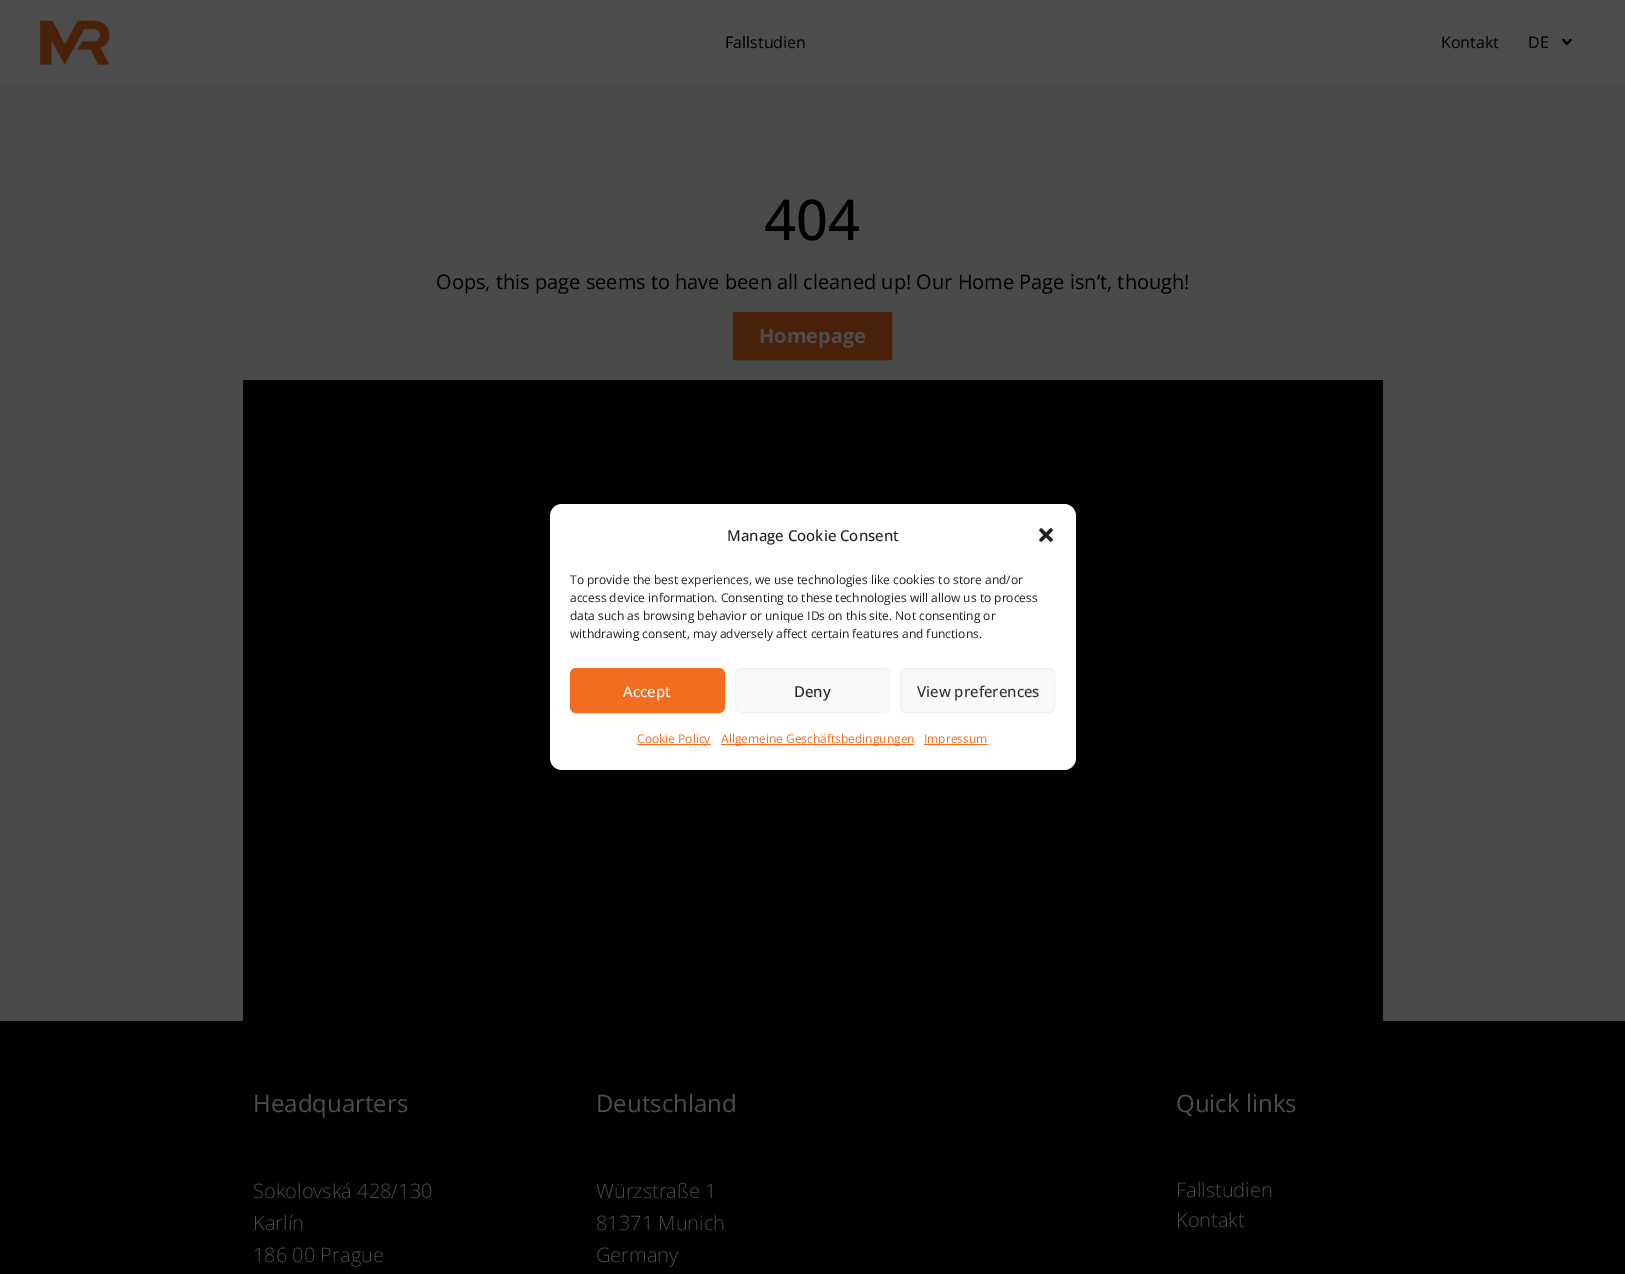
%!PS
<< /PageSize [1625 1274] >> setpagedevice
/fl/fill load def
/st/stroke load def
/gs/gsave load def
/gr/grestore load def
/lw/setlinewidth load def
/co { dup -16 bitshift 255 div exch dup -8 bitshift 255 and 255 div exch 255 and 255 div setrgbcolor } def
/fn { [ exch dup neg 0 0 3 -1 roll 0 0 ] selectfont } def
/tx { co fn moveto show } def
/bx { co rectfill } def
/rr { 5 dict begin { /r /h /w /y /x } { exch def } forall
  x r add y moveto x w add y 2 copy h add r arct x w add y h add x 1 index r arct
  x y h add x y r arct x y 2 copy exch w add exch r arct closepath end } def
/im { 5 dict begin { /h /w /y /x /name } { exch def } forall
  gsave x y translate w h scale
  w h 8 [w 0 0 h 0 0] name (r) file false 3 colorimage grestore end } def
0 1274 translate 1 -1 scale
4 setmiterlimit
0 0 1625 1274 16#4D4D4D bx
(media/1.raw) 40 20 70 45 im
(media/2.raw) 1562 38 10 8 im
0 85 1625 936 16#494A4A bx
16#49210A co
734 313 157 46 1 rr gs fl gr
2 lw
st
243 380 1140 641 16#000000 bx
16#FFFFFF co
550 504 526 266 12 rr fl
(media/3.raw) 1039 528 14 14 im
16#F36D21 co
570.5 668.5 154 44 5.5 rr gs fl gr
1 lw
st
16#F9F9F9 co
735.5 668.5 154 44 5.5 rr gs fl gr
16#F2F2F2 co
st
16#F9F9F9 co
900.5 668.5 154 44 5.5 rr gs fl gr
16#F2F2F2 co
st
637 744 74 1 16#F36D21 bx
721 744 193 1 16#F36D21 bx
924 744 64 1 16#F36D21 bx
0 1021 1625 253 16#000000 bx
(Fallstudien) 725 48 /OpenSans-Regular 16 16#000000 tx
(Kontakt) 1441 48 /OpenSans-Regular 16 16#000000 tx
(DE) 1528 48 /OpenSans-Regular 16 16#000000 tx
(404) 764 240 /OpenSans-Medium 56 16#000000 tx
(Oops, this page seems to have been all cleaned up! Our Home Page isn’t, though!) 436 289 /OpenSans-Regular 20 16#000000 tx
(Homepage) 759 343 /OpenSans-Bold 20 16#4D4D4D tx
(Manage Cookie Consent) 727 541 /OpenSans-Medium 15 16#222222 tx
(To provide the best experiences, we use technologies like cookies to store and/or) 570 584 /OpenSans-Regular 12 16#222222 tx
(access device information. Consenting to these technologies will allow us to process) 570 602 /OpenSans-Regular 12 16#222222 tx
(data such as browsing behavior or unique IDs on this site. Not consenting or) 570 620 /OpenSans-Regular 12 16#222222 tx
(withdrawing consent, may adversely affect certain features and functions.) 570 638 /OpenSans-Regular 12 16#222222 tx
(Accept) 623 697 /OpenSans-Medium 15 16#FFFFFF tx
(Deny) 794 697 /OpenSans-Medium 15 16#222222 tx
(View preferences) 917 697 /OpenSans-Medium 15 16#333333 tx
(Cookie Policy) 637 743 /OpenSans-Regular 12 16#F36D21 tx
(Allgemeine Geschäftsbedingungen) 721 743 /OpenSans-Regular 12 16#F36D21 tx
(Impressum) 924 743 /OpenSans-Regular 12 16#F36D21 tx
(Headquarters) 253 1112 /OpenSans-Regular 24 16#4D4D4D tx
(Sokolovská 428/130) 253 1198 /OpenSans-Light 20 16#4D4D4D tx
(Karlín) 253 1230 /OpenSans-Light 20 16#4D4D4D tx
(186 00 Prague) 253 1262 /OpenSans-Light 20 16#4D4D4D tx
(Deutschland) 596 1112 /OpenSans-Regular 24 16#4D4D4D tx
(Würzstraße 1) 596 1198 /OpenSans-Light 20 16#4D4D4D tx
(81371 Munich) 596 1230 /OpenSans-Light 20 16#4D4D4D tx
(Germany) 596 1262 /OpenSans-Light 20 16#4D4D4D tx
(Quick links) 1176 1112 /OpenSans-Regular 24 16#4D4D4D tx
(Fallstudien) 1176 1197 /OpenSans-Light 20 16#4D4D4D tx
(Kontakt) 1176 1227 /OpenSans-Light 20 16#4D4D4D tx
showpage
